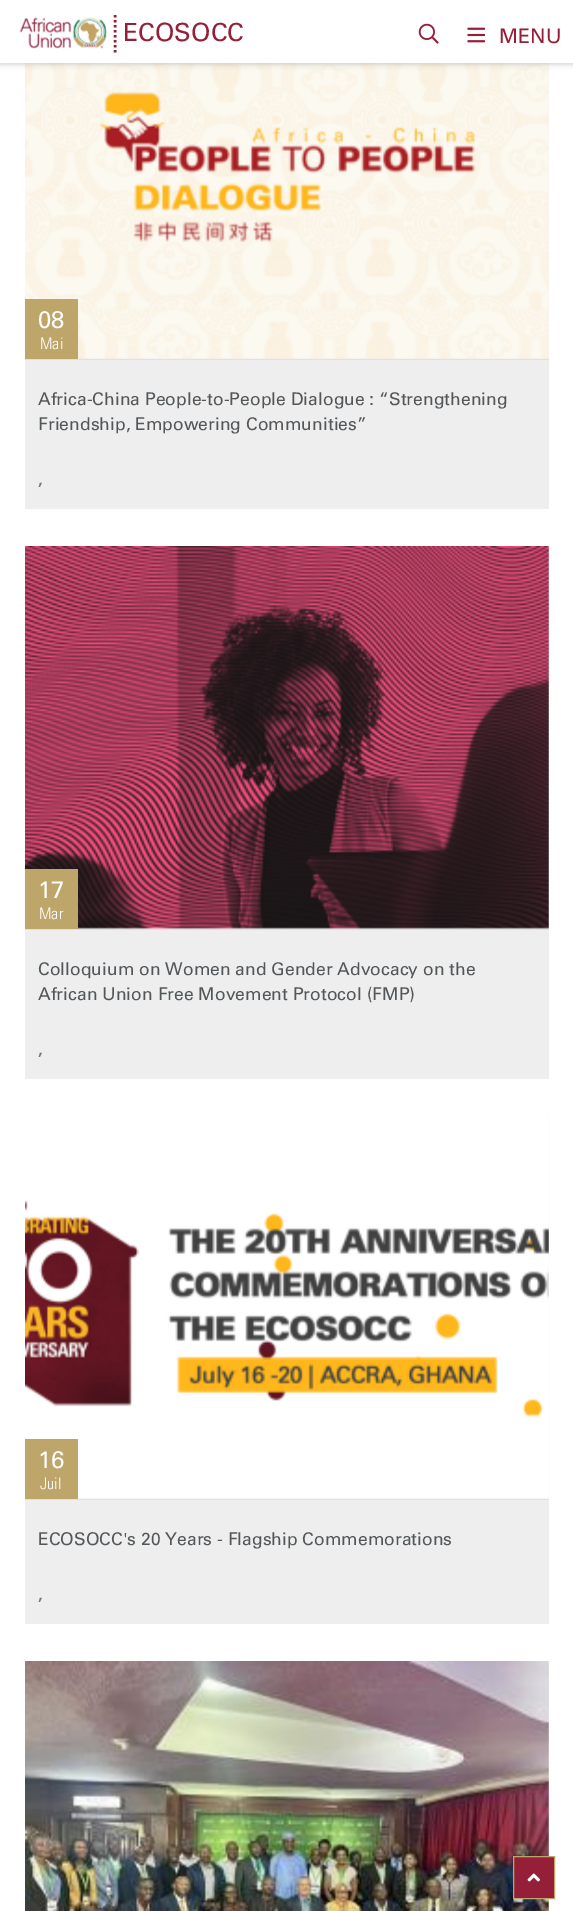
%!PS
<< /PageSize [573 1911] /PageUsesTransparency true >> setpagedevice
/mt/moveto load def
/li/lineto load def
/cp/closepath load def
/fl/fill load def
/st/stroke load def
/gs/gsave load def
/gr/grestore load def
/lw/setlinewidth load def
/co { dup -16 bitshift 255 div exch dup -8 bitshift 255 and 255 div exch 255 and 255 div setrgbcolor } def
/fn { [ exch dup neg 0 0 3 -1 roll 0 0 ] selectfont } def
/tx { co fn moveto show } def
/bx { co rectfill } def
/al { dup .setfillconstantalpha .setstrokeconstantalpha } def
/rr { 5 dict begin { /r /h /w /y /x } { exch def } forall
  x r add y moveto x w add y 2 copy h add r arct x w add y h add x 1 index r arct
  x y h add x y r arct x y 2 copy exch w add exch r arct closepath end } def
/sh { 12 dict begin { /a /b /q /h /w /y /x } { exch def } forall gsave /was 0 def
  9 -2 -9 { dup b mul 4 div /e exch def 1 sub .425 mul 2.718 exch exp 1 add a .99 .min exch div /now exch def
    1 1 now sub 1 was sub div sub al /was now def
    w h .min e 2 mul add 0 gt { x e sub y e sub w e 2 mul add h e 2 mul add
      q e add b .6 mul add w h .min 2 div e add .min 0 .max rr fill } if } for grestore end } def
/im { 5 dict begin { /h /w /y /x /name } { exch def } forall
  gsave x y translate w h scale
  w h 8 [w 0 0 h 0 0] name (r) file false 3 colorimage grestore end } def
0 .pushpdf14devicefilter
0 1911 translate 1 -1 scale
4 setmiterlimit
0 0 573 1911 16#FFFFFF bx
25 63 524 446 16#EEEEEE bx
(media/4.raw) 25 63 524 296 im
16#000000 co
0 1 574 63 0 3 .2 sh
0 0 573 63 16#FFFFFF bx
(media/1.raw) 19 17 88 32 im
16#951F39 co
2.5 lw
[2.5 2.5] 0 setdash
115 15 mt 115 52.5 li st
(media/2.raw) 418 23 21 21 im
(media/3.raw) 467 27 18 16 im
25 359 524 1 16#E0E0E0 bx
25 299 53 60 16#BEA56A bx
25 546 524 533 16#EEEEEE bx
25 929 524 1 16#E0E0E0 bx
(media/5.raw) 25 546 524 383 im
25 869 53 60 16#BEA56A bx
25 1116 524 508 16#EEEEEE bx
25 1499 524 1 16#E0E0E0 bx
(media/6.raw) 25 1116 524 383 im
25 1439 53 60 16#BEA56A bx
(media/7.raw) 25 1661 524 250 im
16#951F39 co
513.5 1856.5 mt 554.5 1856.5 li 554.5 1898.5 li 513.5 1898.5 li cp gs fl gr
16#BEA56A co
1 lw
[] 0 setdash
st
(media/8.raw) 527 1873 13 9 im
(ECOSOCC) 123 41 /Univers-Regular 25 16#951F39 tx
(MENU) 499 43 /Univers-Regular 20 16#951F39 tx
(08) 38 328 /Univers-Regular 24 16#FFFFFF tx
(Mai) 40 349 /Univers-Light 16 16#FFFFFF tx
(Africa-China People-to-People Dialogue : “Strengthening) 38 405 /Univers-Regular 17.5 16#53575A tx
(Friendship, Empowering Communities”) 38 430 /Univers-Regular 17.5 16#53575A tx
/Univers-Bold 15 fn
16#737373 co
38 485 mt 1 0 (,) ashow
(17) 38 898 /Univers-Regular 24 16#FFFFFF tx
(Mar) 39 919 /Univers-Light 16 16#FFFFFF tx
(Colloquium on Women and Gender Advocacy on the) 38 975 /Univers-Regular 17.5 16#53575A tx
(African Union Free Movement Protocol \(FMP\)) 38 1000 /Univers-Regular 17.5 16#53575A tx
/Univers-Bold 15 fn
16#737373 co
38 1055 mt 1 0 (,) ashow
(16) 38 1468 /Univers-Regular 24 16#FFFFFF tx
(Juil) 40 1489 /Univers-Light 16 16#FFFFFF tx
(ECOSOCC's 20 Years - Flagship Commemorations) 38 1545 /Univers-Regular 17.5 16#53575A tx
/Univers-Bold 15 fn
16#737373 co
38 1600 mt 1 0 (,) ashow
.poppdf14devicefilter showpage
